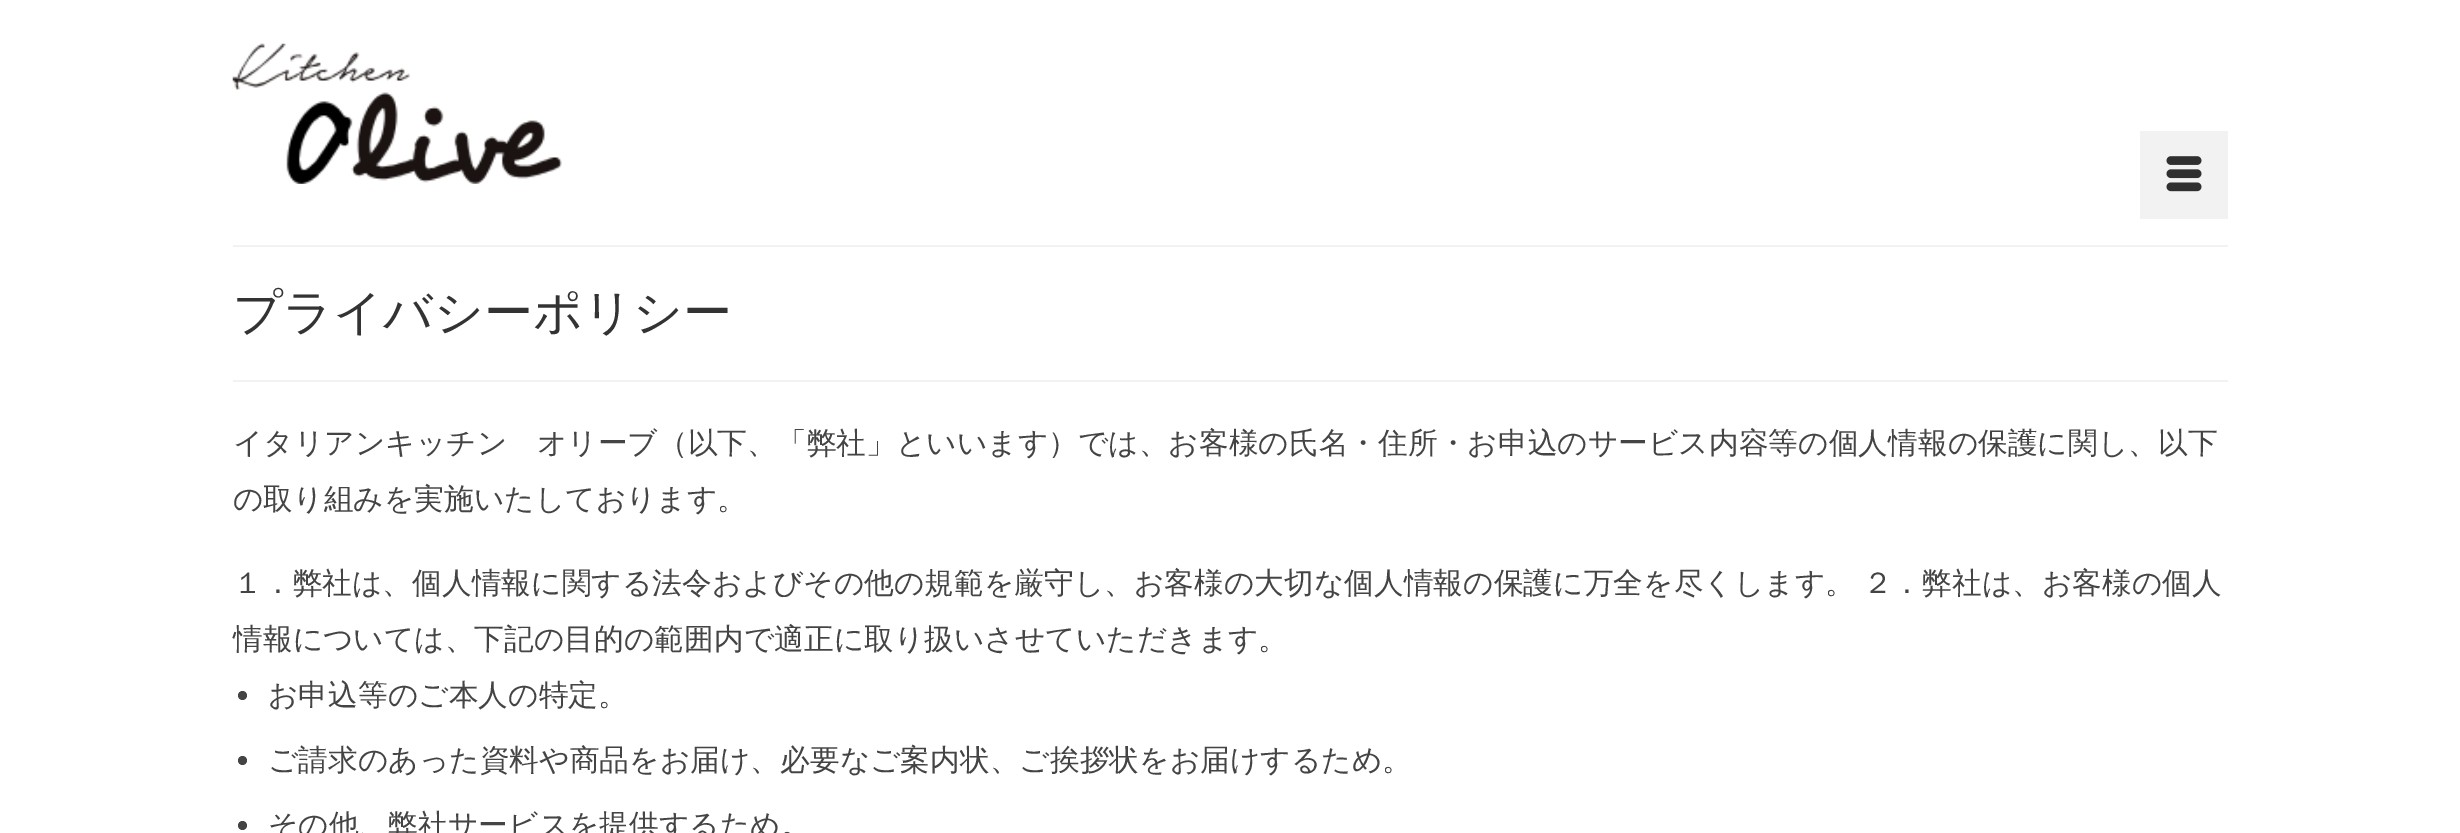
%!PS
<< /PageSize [2460 833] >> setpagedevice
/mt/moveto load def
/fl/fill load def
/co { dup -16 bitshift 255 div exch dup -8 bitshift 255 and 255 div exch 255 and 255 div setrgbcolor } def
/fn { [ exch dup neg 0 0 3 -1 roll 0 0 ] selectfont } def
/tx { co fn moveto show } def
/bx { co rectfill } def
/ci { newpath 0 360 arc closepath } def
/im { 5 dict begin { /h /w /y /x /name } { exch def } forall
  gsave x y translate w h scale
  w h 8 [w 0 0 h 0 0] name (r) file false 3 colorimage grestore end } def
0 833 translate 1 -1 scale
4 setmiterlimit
0 0 2460 833 16#FFFFFF bx
(media/1.raw) 232 43 330 141 im
2140 131 88 88 16#F2F2F2 bx
(media/2.raw) 2166 156 36 36 im
233 245 1995 2 16#F2F2F2 bx
233 380 1995 2 16#F2F2F2 bx
16#444444 co
242.5 695.5 4.5 ci fl
242.5 760.5 4.5 ci fl
242.5 825.5 4.5 ci fl
(プライバシーポリシー) 233 329 /WenQuanYiZenHei-Medium 49 16#333333 tx
(イタリアンキッチン　オリーブ（以下、「弊社」といいます）では、お客様の氏名・住所・お申込のサービス内容等の個人情報の保護に関し、以下) 233 453 /WenQuanYiZenHei-Medium 29.75 16#444444 tx
(の取り組みを実施いたしております。) 233 509 /WenQuanYiZenHei-Medium 29.75 16#444444 tx
233 593 mt -1 0 32 (１．弊社は、個人情報に関する法令およびその他の規範を厳守し、お客様の大切な個人情報の保護に万全を尽くします。 ２．弊社は、お客様の個人) widthshow
(情報については、下記の目的の範囲内で適正に取り扱いさせていただきます。) 233 649 /WenQuanYiZenHei-Medium 29.75 16#444444 tx
(お申込等のご本人の特定。) 268 705 /WenQuanYiZenHei-Medium 29.75 16#444444 tx
(ご請求のあった資料や商品をお届け、必要なご案内状、ご挨拶状をお届けするため。) 268 770 /WenQuanYiZenHei-Medium 29.75 16#444444 tx
(その他、弊社サービスを提供するため。) 268 835 /WenQuanYiZenHei-Medium 29.75 16#444444 tx
showpage
